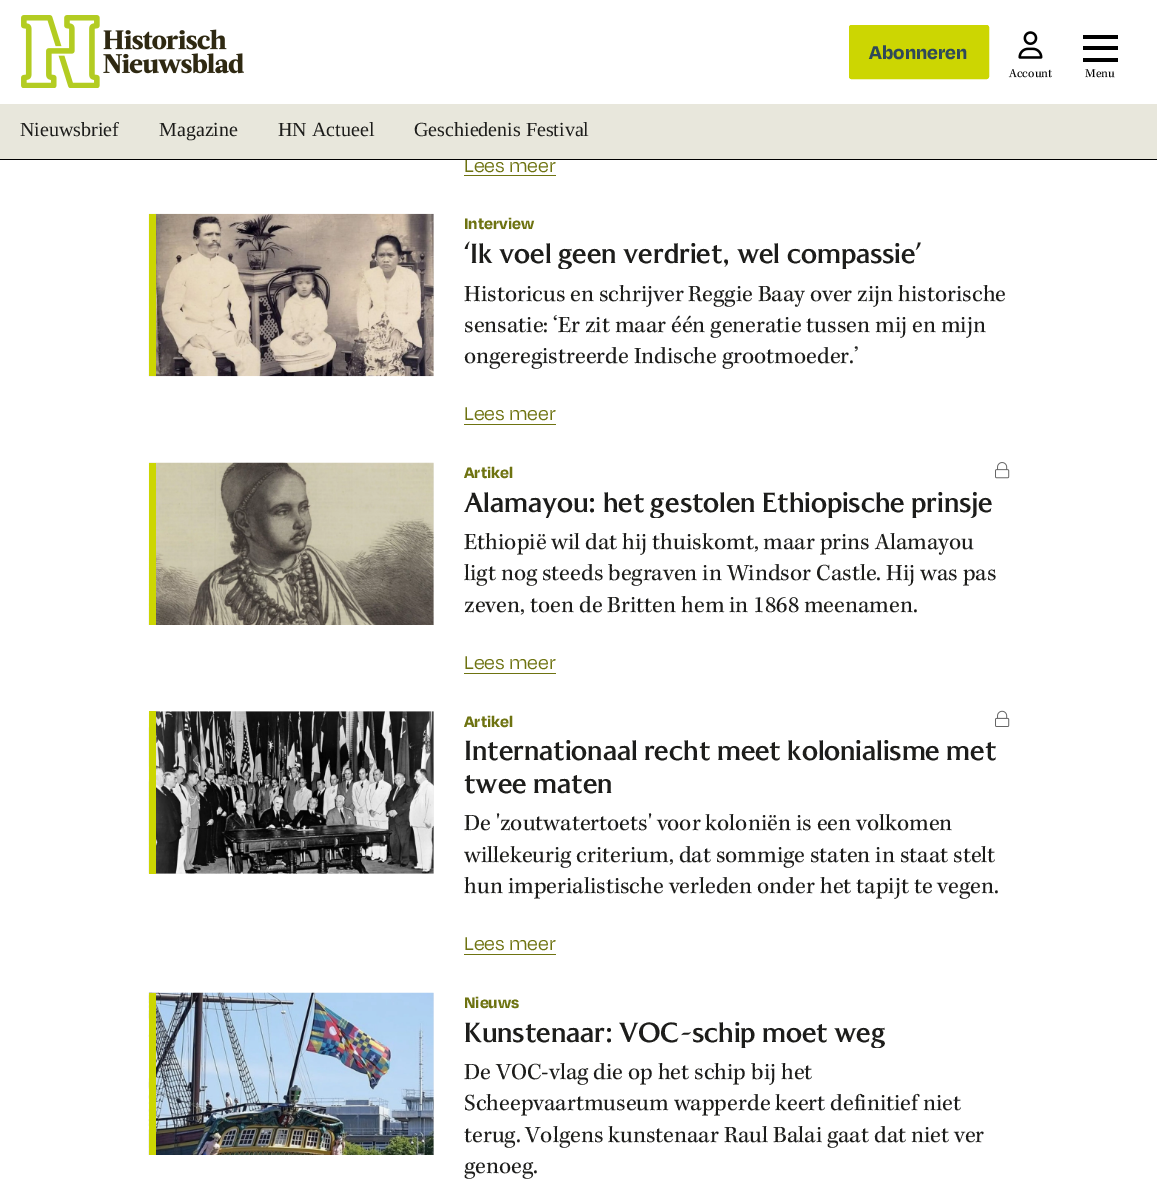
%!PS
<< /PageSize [1157 1191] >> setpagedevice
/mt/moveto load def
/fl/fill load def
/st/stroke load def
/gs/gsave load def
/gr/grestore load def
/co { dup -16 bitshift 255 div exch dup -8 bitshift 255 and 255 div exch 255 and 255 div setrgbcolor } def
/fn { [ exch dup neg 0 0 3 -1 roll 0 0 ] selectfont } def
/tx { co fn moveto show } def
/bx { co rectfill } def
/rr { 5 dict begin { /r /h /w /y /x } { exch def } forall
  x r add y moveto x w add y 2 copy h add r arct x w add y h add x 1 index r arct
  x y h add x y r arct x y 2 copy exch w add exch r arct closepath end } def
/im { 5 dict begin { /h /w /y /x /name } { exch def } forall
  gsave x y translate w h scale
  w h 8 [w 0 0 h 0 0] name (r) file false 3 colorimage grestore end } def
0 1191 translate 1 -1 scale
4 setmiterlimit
0 0 1157 1191 16#FFFFFF bx
(media/1.raw) 21 15 223 73 im
16#CCD602 co
849.5 25.5 139 53 2 rr gs fl gr
st
(media/2.raw) 1018 31 25 28 im
1083 35 35 4 16#000000 bx
1083 46 35 4 16#000000 bx
1083 58 35 4 16#000000 bx
0 104 1157 55 16#E8E7DC bx
464 175 92 1 16#6E7311 bx
433 214 1 162 16#F0F0F0 bx
(media/3.raw) 148 213 286 164 im
149 214 7 162 16#CCD602 bx
464 424 92 1 16#6E7311 bx
433 463 1 162 16#F0F0F0 bx
(media/4.raw) 148 462 286 163 im
149 463 7 162 16#CCD602 bx
(media/5.raw) 995 462 15 17 im
464 673 92 1 16#6E7311 bx
156 711 278 163 16#F0F0F0 bx
(media/6.raw) 148 711 286 163 im
149 711 7 163 16#CCD602 bx
(media/7.raw) 995 710 15 17 im
464 954 92 1 16#6E7311 bx
433 993 1 162 16#F0F0F0 bx
(media/8.raw) 148 992 286 163 im
149 993 7 162 16#CCD602 bx
(Abonneren) 869 59 /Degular-Bold 21.25 16#2F4959 tx
(Account) 1009 77 /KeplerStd-Regular 12.5 16#000000 tx
(Menu) 1085 77 /KeplerStd-Regular 12.5 16#000000 tx
(Nieuwsbrief) 20 136 /LiberationSerif-Regular 20 16#1D1D1B tx
(Magazine) 159 136 /LiberationSerif-Regular 20 16#1D1D1B tx
(HN Actueel) 278 136 /LiberationSerif-Regular 20 16#1D1D1B tx
(Geschiedenis Festival) 414 136 /LiberationSerif-Regular 20 16#1D1D1B tx
(Lees meer) 464 172 /Degular-Regular 21.25 16#6E7311 tx
0 159 1157 1 16#000000 bx
(Interview) 464 229 /Degular-Bold 17.5 16#6E7311 tx
gs
464 236 545 33 rectclip
/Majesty-Medium 27.5 fn
16#1D1D1B co
464 263 mt -.2 0 (‘Ik voel geen verdriet, wel compassie’) ashow
gr
(Historicus en schrijver Reggie Baay over zijn historische) 464 301 /KeplerStd-Regular 23.75 16#1D1D1B tx
(sensatie: ‘Er zit maar één generatie tussen mij en mijn) 464 332 /KeplerStd-Regular 23.75 16#1D1D1B tx
(ongeregistreerde Indische grootmoeder.’) 464 363 /KeplerStd-Regular 23.75 16#1D1D1B tx
(Lees meer) 464 420 /Degular-Regular 21.25 16#6E7311 tx
(Artikel) 464 478 /Degular-Bold 17.5 16#6E7311 tx
gs
464 485 545 33 rectclip
/Majesty-Medium 27.5 fn
16#1D1D1B co
464 512 mt -.2 0 (Alamayou: het gestolen Ethiopische prinsje) ashow
gr
(Ethiopië wil dat hij thuiskomt, maar prins Alamayou) 464 549 /KeplerStd-Regular 23.75 16#1D1D1B tx
(ligt nog steeds begraven in Windsor Castle. Hij was pas) 464 580 /KeplerStd-Regular 23.75 16#1D1D1B tx
(zeven, toen de Britten hem in 1868 meenamen.) 464 612 /KeplerStd-Regular 23.75 16#1D1D1B tx
(Lees meer) 464 669 /Degular-Regular 21.25 16#6E7311 tx
(Artikel) 464 727 /Degular-Bold 17.5 16#6E7311 tx
/Majesty-Medium 27.5 fn
16#1D1D1B co
464 760 mt -.2 0 (Internationaal recht meet kolonialisme met) ashow
464 793 mt -.2 0 (twee maten) ashow
(De 'zoutwatertoets' voor koloniën is een volkomen) 464 830 /KeplerStd-Regular 23.75 16#1D1D1B tx
(willekeurig criterium, dat sommige staten in staat stelt) 464 862 /KeplerStd-Regular 23.75 16#1D1D1B tx
(hun imperialistische verleden onder het tapijt te vegen.) 464 893 /KeplerStd-Regular 23.75 16#1D1D1B tx
(Lees meer) 464 950 /Degular-Regular 21.25 16#6E7311 tx
(Nieuws) 464 1008 /Degular-Bold 17.5 16#6E7311 tx
gs
464 1015 545 33 rectclip
/Majesty-Medium 27.5 fn
16#1D1D1B co
464 1042 mt -.2 0 (Kunstenaar: VOC-schip moet weg) ashow
gr
(De VOC-vlag die op het schip bij het) 464 1079 /KeplerStd-Regular 23.75 16#1D1D1B tx
(Scheepvaartmuseum wapperde keert definitief niet) 464 1110 /KeplerStd-Regular 23.75 16#1D1D1B tx
(terug. Volgens kunstenaar Raul Balai gaat dat niet ver) 464 1142 /KeplerStd-Regular 23.75 16#1D1D1B tx
(genoeg.) 464 1173 /KeplerStd-Regular 23.75 16#1D1D1B tx
showpage
